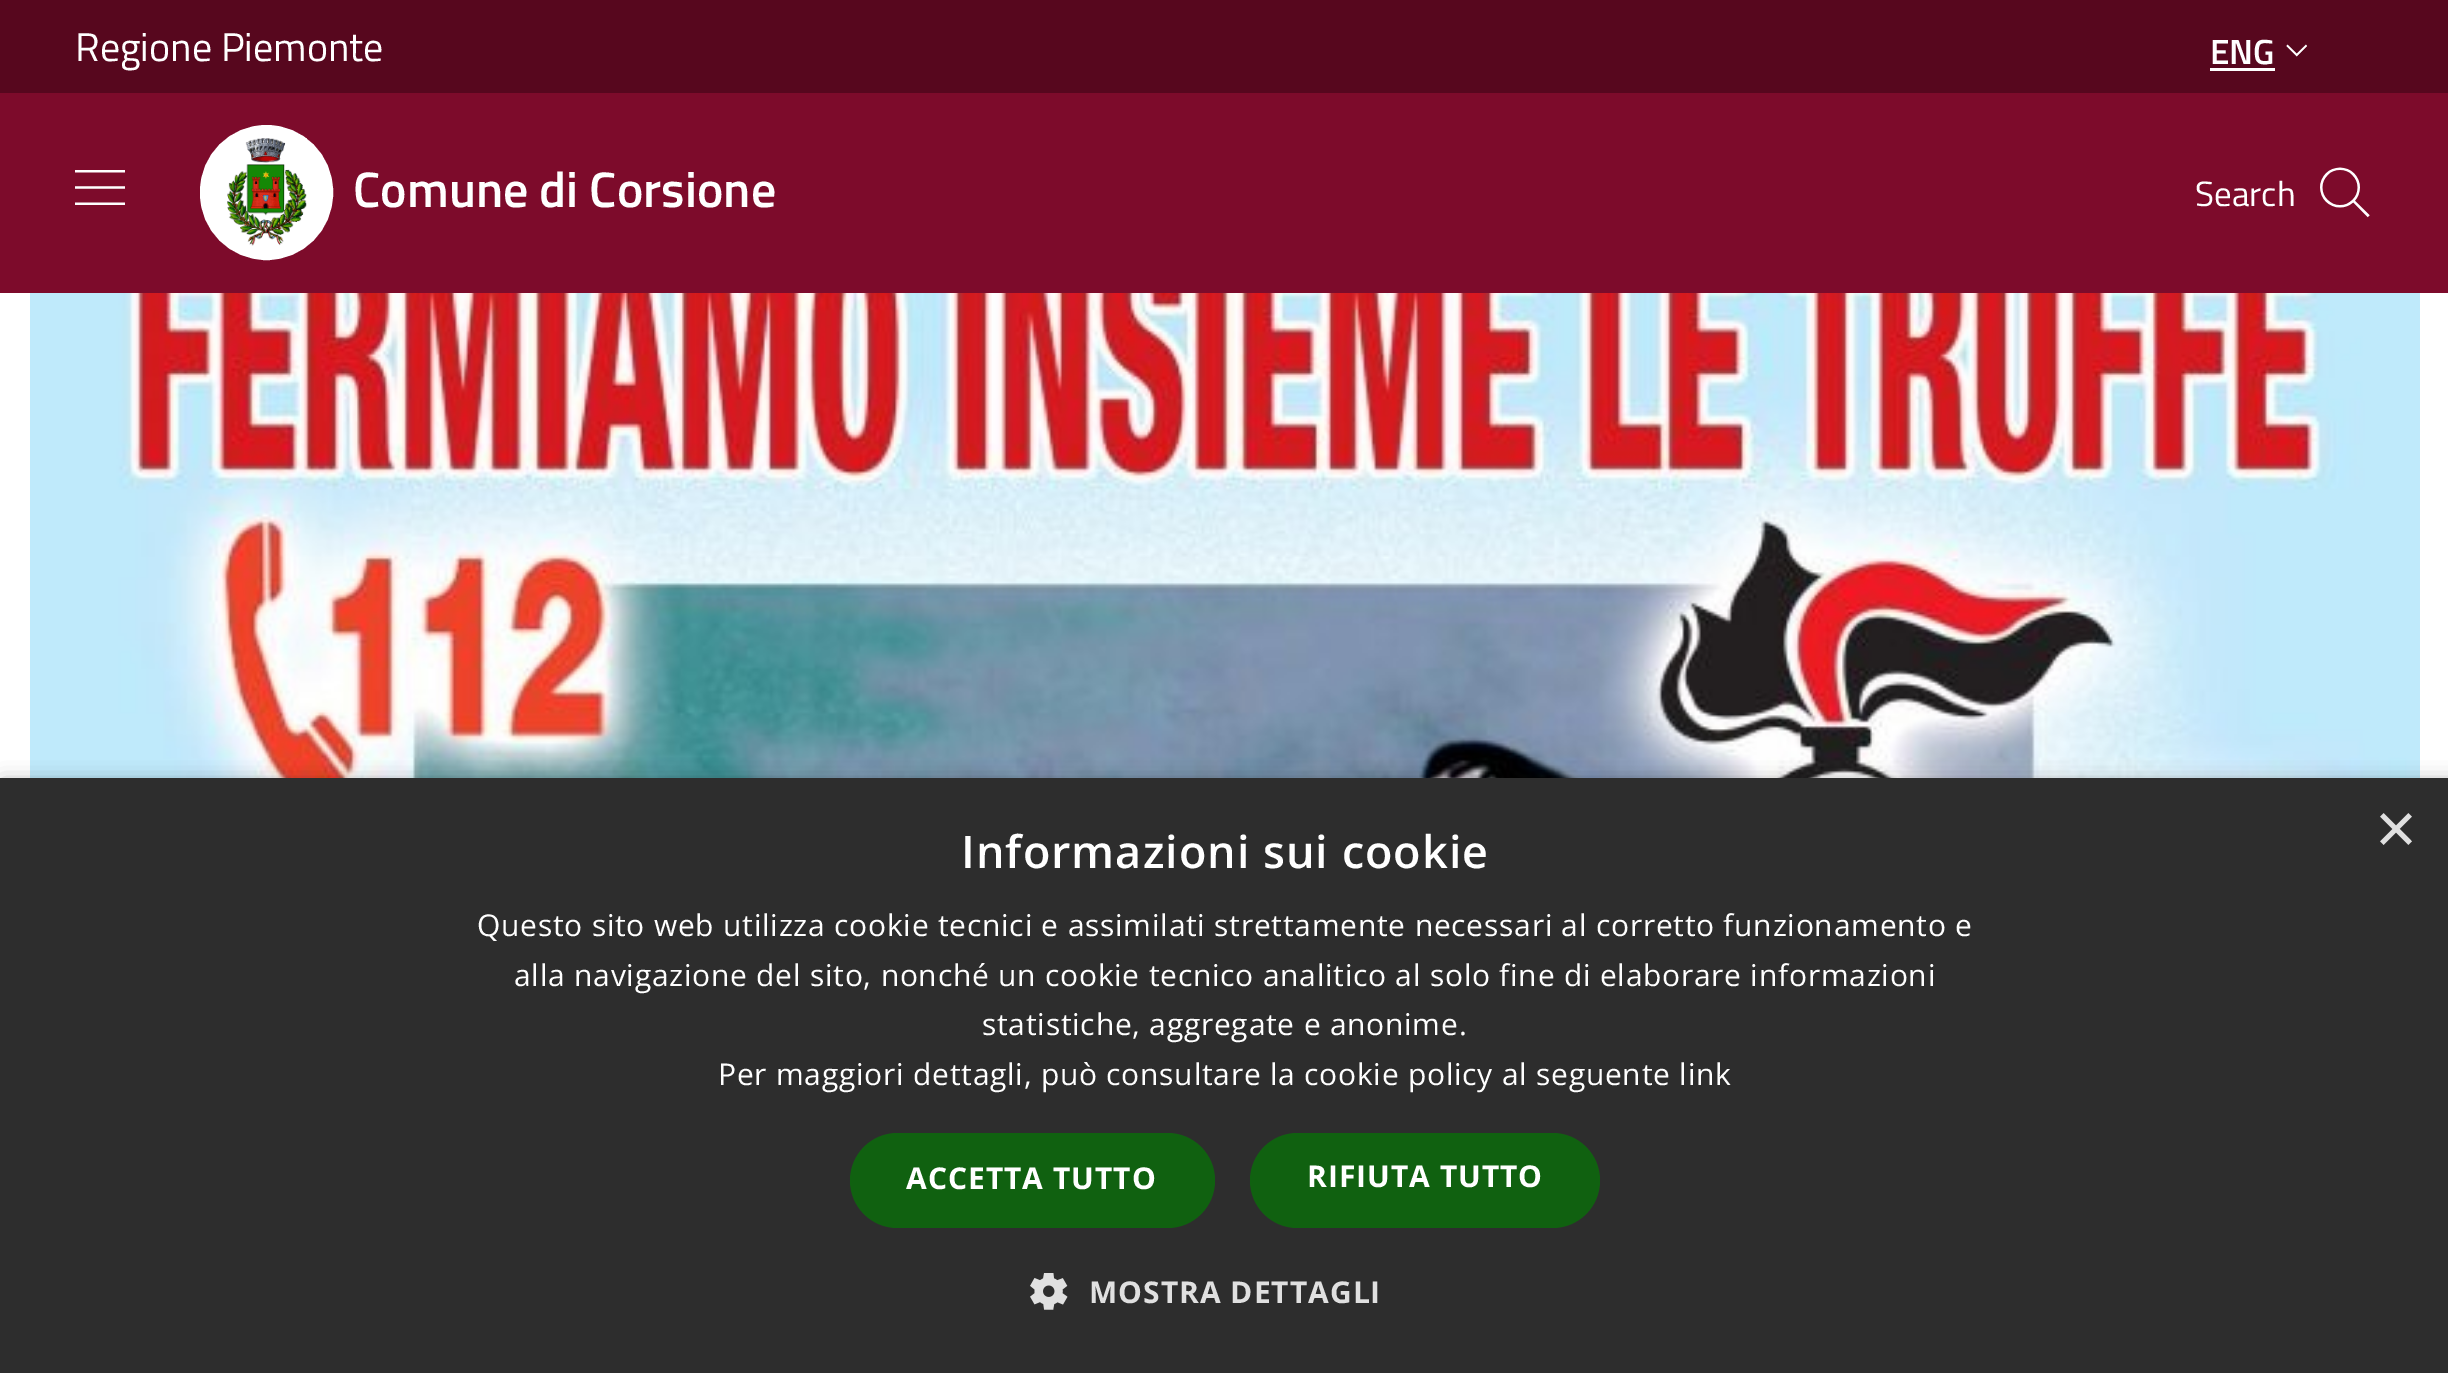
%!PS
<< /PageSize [2448 1373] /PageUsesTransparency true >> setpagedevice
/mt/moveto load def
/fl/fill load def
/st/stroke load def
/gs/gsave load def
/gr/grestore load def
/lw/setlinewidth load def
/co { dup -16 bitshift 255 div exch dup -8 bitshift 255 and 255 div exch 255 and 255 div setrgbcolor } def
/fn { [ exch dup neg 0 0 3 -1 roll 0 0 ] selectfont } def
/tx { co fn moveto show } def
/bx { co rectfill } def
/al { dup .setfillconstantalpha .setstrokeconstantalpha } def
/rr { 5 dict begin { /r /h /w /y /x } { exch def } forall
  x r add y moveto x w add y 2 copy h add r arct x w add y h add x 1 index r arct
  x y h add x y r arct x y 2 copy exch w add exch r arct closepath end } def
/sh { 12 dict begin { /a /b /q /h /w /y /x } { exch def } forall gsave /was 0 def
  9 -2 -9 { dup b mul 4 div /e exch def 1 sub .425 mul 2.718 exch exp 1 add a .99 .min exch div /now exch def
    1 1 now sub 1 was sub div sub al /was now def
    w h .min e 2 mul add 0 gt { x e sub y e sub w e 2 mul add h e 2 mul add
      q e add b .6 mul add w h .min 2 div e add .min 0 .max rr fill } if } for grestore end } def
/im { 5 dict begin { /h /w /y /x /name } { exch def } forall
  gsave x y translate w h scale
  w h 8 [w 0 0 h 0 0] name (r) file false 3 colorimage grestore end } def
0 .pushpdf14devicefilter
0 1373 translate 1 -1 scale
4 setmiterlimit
0 0 2448 1373 16#FFFFFF bx
0 0 2448 93 16#57071E bx
2210 68 65 3 16#FFFFFF bx
(media/1.raw) 2286 44 21 13 im
0 93 2448 200 16#7D0B2B bx
(media/2.raw) 75 170 50 35 im
16#FFFFFF co
201.5 126.5 130 132 65 rr gs fl gr
3 lw
st
(media/3.raw) 227 138 80 108 im
(media/4.raw) 2320 167 50 51 im
(media/5.raw) 30 293 2390 485 im
16#000000 co
3 783 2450 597 0 10 .35 sh
0 778 2448 595 16#2D2D2D bx
16#106110 co
850 1133 365 95 47.5 rr fl
1250 1133 350 95 47.5 rr fl
(media/6.raw) 1030 1273 38 37 im
(Regione Piemonte) 75 61 /TitilliumWeb-Regular 40 16#FFFFFF tx
(ENG) 2210 64 /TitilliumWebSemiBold-SemiBold 35 16#FFFFFF tx
(Comune di Corsione) 353 207 /TitilliumWebSemiBold-SemiBold 50 16#FFFFFF tx
(Search) 2195 206 /TitilliumWeb-Regular 35 16#FFFFFF tx
(×) 2375 853 /LiberationSans-Regular 72 16#E0E0E0 tx
/OpenSans-SemiBold 45 fn
16#FFFFFF co
961 868 mt 1 0 (Informazioni sui cookie) ashow
/OpenSans-Regular 30 fn
477 936 mt .75 0 (Questo sito web utilizza cookie tecnici e assimilati strettamente necessari al corretto funzionamento e) ashow
514 986 mt .75 0 (alla navigazione del sito, nonché un cookie tecnico analitico al solo fine di elaborare informazioni) ashow
982 1035 mt .75 0 (statistiche, aggregate e anonime.) ashow
718 1085 mt .75 0 (Per maggiori dettagli, può consultare la cookie policy al seguente link) ashow
/OpenSans-Bold 30 fn
906 1189 mt 1 0 (ACCETTA TUTTO) ashow
1307 1187 mt 1 0 (RIFIUTA TUTTO) ashow
16#E0E0E0 co
1089 1303 mt 1 0 (MOSTRA DETTAGLI) ashow
.poppdf14devicefilter showpage
